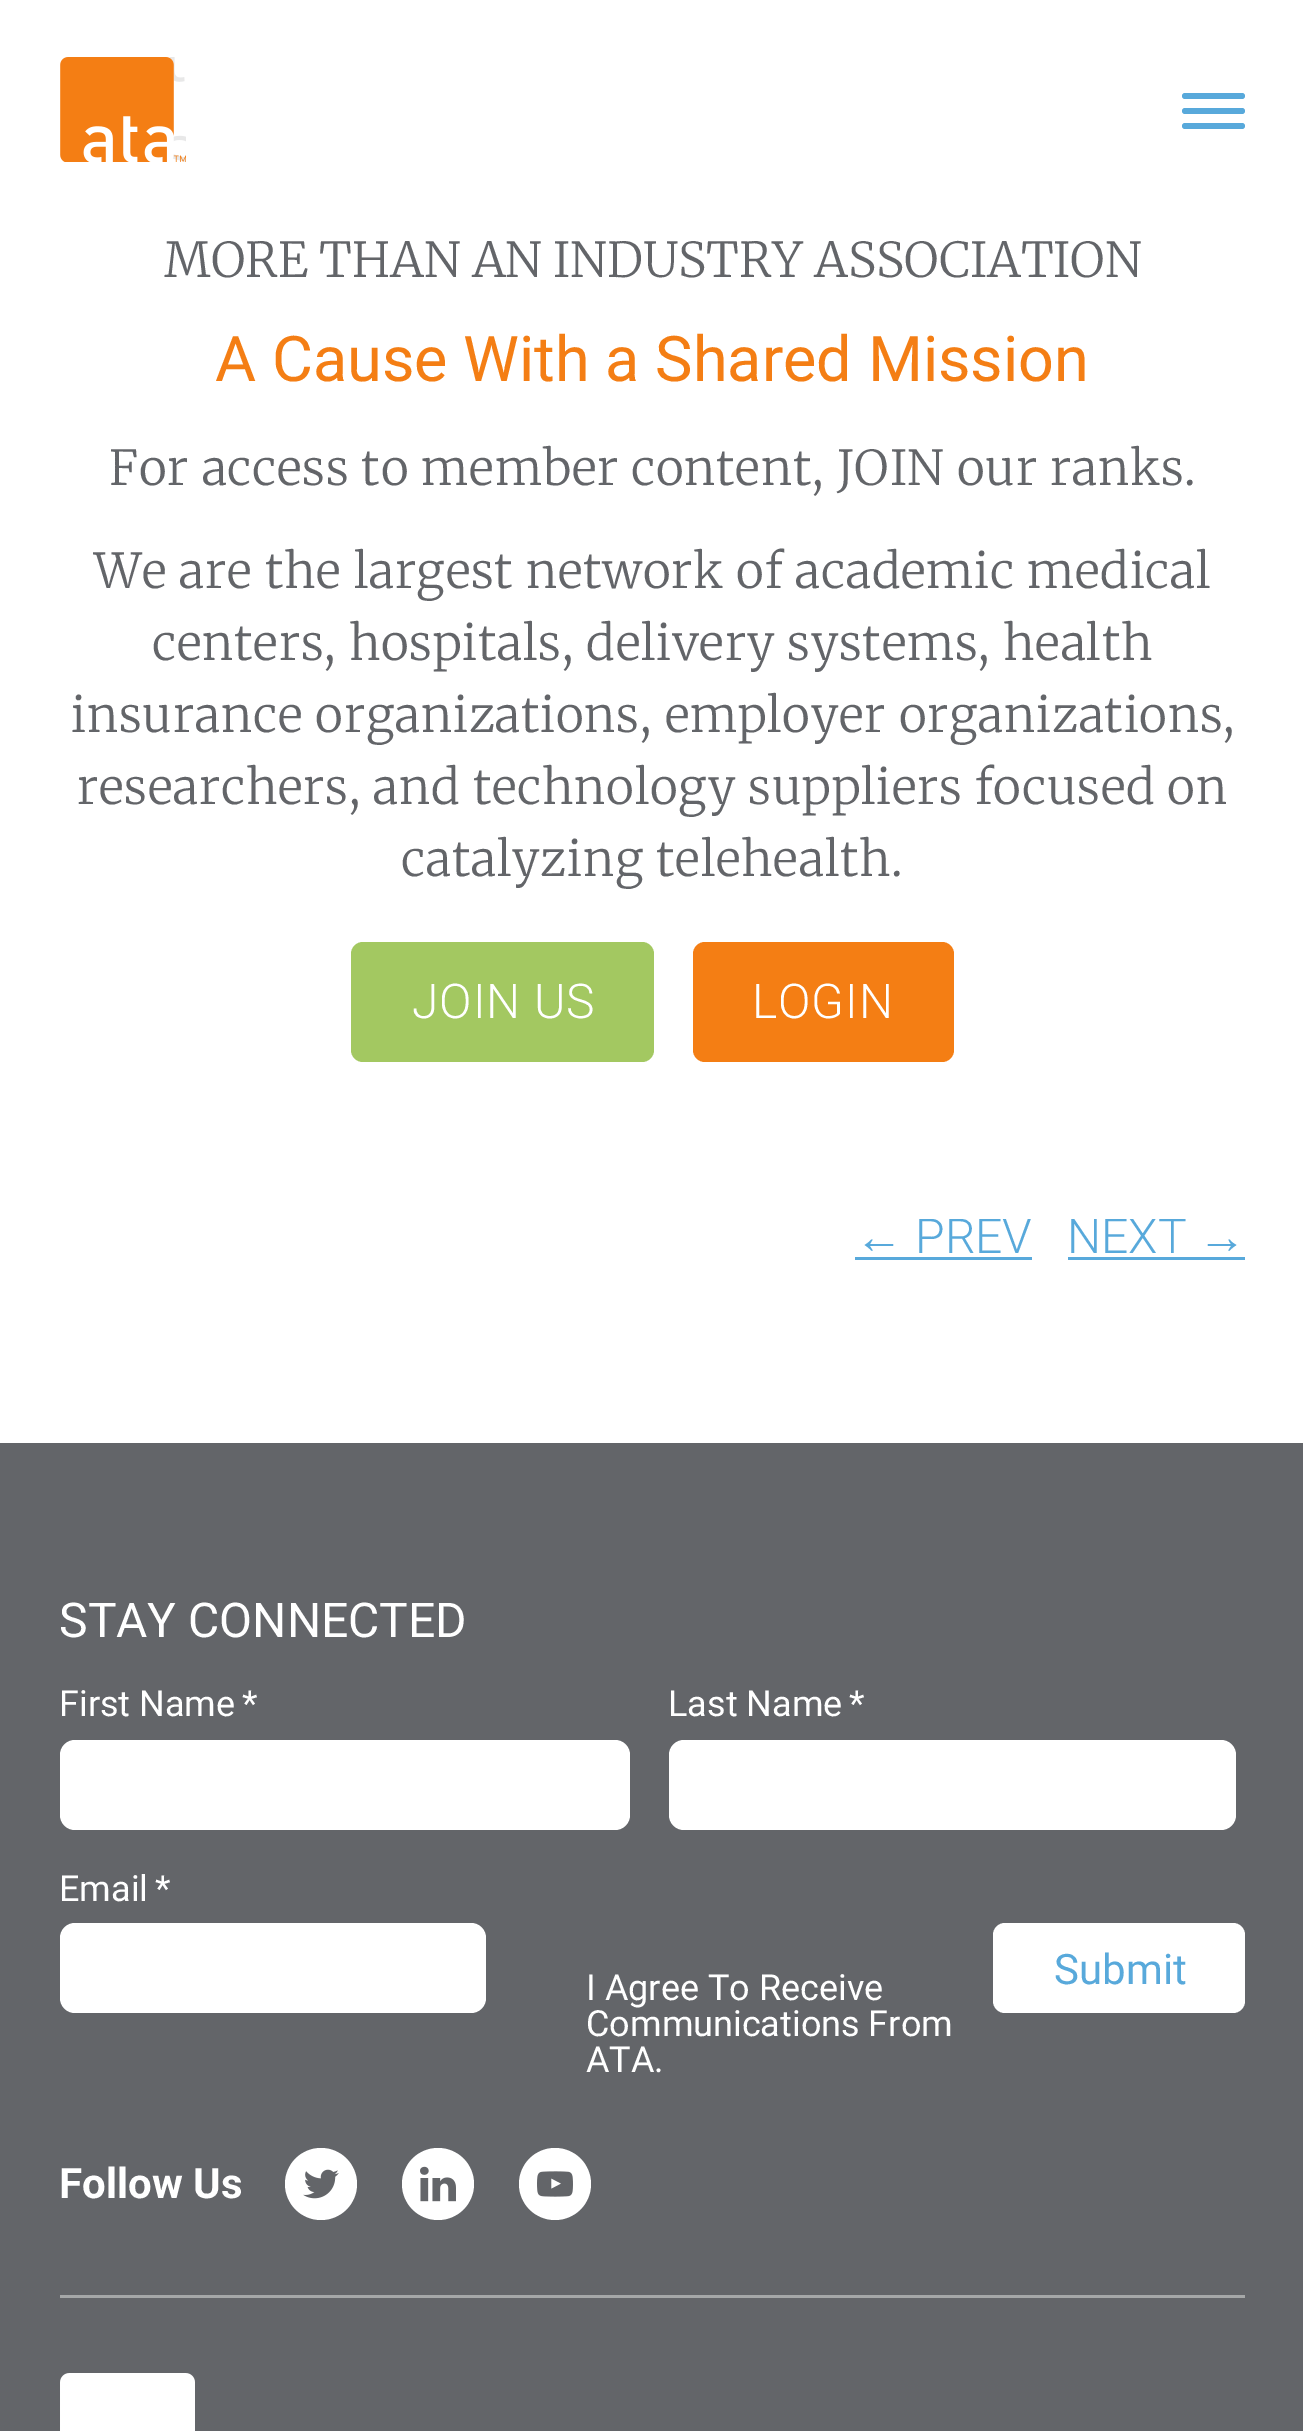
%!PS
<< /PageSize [1303 2431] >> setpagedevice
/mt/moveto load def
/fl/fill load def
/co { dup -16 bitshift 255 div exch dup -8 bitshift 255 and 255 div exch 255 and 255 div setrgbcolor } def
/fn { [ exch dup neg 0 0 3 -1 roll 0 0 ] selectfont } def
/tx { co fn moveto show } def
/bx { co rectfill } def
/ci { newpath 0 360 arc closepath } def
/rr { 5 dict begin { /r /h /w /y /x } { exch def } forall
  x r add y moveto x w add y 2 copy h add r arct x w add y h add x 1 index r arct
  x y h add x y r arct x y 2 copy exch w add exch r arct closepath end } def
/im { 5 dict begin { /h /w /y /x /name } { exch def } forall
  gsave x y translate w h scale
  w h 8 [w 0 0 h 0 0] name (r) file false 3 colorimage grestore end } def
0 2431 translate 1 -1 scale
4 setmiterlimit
0 0 1303 2431 16#FFFFFF bx
(media/1.raw) 60 57 126 105 im
16#58A9DB co
1182 108 63 6 3 rr fl
1182 93 63 6 3 rr fl
1182 123 63 6 3 rr fl
16#A3C861 co
351 942 303 120 12 rr fl
16#F47E14 co
693 942 261 120 12 rr fl
855 1257 177 3 16#58A9DB bx
1068 1257 177 3 16#58A9DB bx
0 1443 1303 988 16#636569 bx
60 2295 1185 3 16#A5A7A8 bx
16#FFFFFF co
60 1740 570 90 15 rr fl
669 1740 567 90 15 rr fl
60 1923 426 90 15 rr fl
993 1923 252 90 12 rr fl
321 2184 36 ci fl
(media/2.raw) 303 2169 36 30 im
438 2184 36 ci fl
(media/3.raw) 420 2166 36 36 im
555 2184 36 ci fl
(media/4.raw) 537 2171 36 26 im
(media/5.raw) 60 2373 135 58 im
(MORE THAN AN INDUSTRY ASSOCIATION) 164 277 /Merriweather-Light 48 16#636569 tx
(A Cause With a Shared Mission) 215 381 /Roboto-Regular 63 16#F47E14 tx
/Merriweather-Light 48 fn
16#636569 co
109 485 mt .8 0 (For access to member content, JOIN our ranks.) ashow
94 588 mt .8 0 (We are the largest network of academic medical) ashow
152 660 mt .8 0 (centers, hospitals, delivery systems, health) ashow
71 732 mt .8 0 (insurance organizations, employer organizations,) ashow
77 804 mt .8 0 (researchers, and technology suppliers focused on) ashow
401 876 mt .8 0 (catalyzing telehealth.) ashow
/Roboto-Light 48 fn
16#FFFFFF co
412 1018 mt .8 0 (JOIN US) ashow
752 1018 mt .8 0 (LOGIN) ashow
(←) 855 1253 /LiberationSerif-Regular 48 16#58A9DB tx
(PREV) 915 1253 /Roboto-Light 48 16#58A9DB tx
(NEXT) 1067 1253 /Roboto-Light 48 16#58A9DB tx
(→) 1198 1253 /LiberationSerif-Regular 48 16#58A9DB tx
(STAY CONNECTED) 59 1637 /Roboto-Regular 48 16#FFFFFF tx
(First Name) 59 1716 /Roboto-Regular 36 16#FFFFFF tx
(*) 242 1716 /Roboto-Regular 36 16#FFFFFF tx
(Last Name) 668 1716 /Roboto-Regular 36 16#FFFFFF tx
(*) 849 1716 /Roboto-Regular 36 16#FFFFFF tx
(Email) 59 1901 /Roboto-Regular 36 16#FFFFFF tx
(*) 155 1901 /Roboto-Regular 36 16#FFFFFF tx
(Submit) 1054 1984 /Roboto-Regular 42 16#58A9DB tx
(I Agree To Receive) 586 2000 /Roboto-Regular 36 16#FFFFFF tx
(Communications From) 586 2036 /Roboto-Regular 36 16#FFFFFF tx
(ATA.) 586 2072 /Roboto-Regular 36 16#FFFFFF tx
(Follow Us) 59 2198 /Roboto-Bold 42 16#FFFFFF tx
showpage
